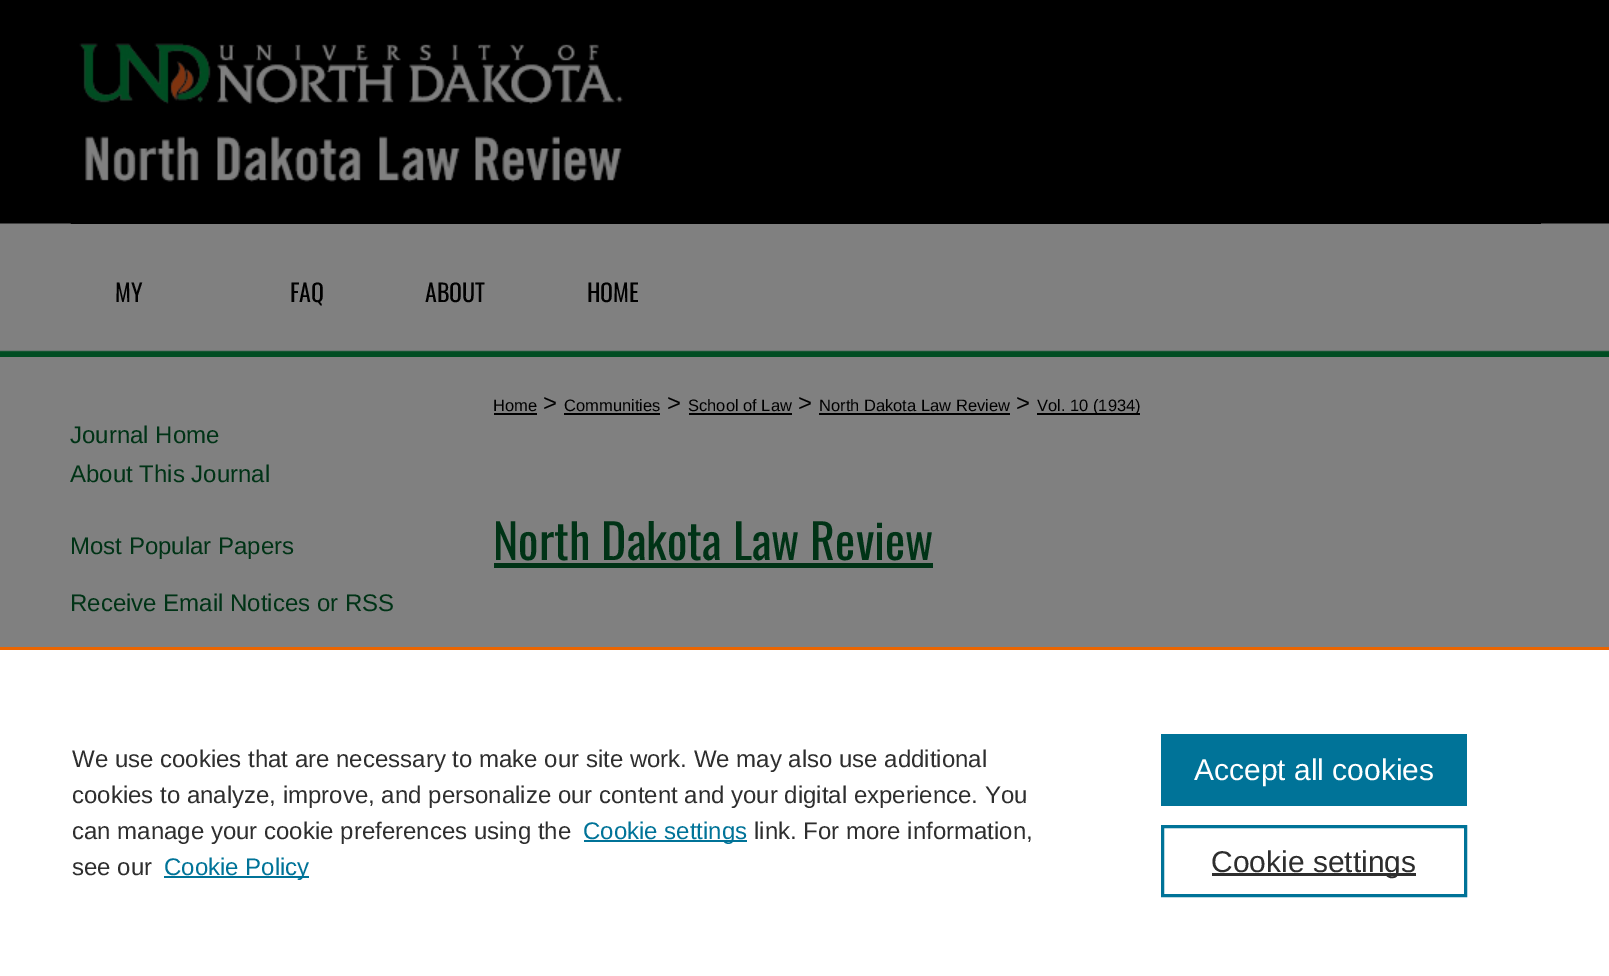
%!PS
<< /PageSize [1609 976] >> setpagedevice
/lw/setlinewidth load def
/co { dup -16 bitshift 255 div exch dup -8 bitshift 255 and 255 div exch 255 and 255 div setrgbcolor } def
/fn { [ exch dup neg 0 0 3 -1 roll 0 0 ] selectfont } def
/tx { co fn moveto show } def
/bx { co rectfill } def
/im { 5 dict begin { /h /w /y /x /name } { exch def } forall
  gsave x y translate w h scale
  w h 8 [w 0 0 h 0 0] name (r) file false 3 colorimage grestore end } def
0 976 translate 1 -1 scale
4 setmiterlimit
0 0 1609 976 16#808080 bx
(media/1.raw) 0 0 1609 357 im
71 223 1470 1 16#000000 bx
(media/2.raw) 70 43 553 181 im
494 413 43 2 16#000000 bx
564 413 96 2 16#000000 bx
689 413 103 2 16#000000 bx
819 413 191 2 16#000000 bx
1037 413 103 2 16#000000 bx
494 563 439 5 16#003316 bx
0 650 1609 326 16#FFFFFF bx
0 647 1609 3 16#EB6500 bx
584 840 163 2 16#007398 bx
164 876 145 2 16#007398 bx
1161 734 306 72 16#007398 bx
3 lw
1162.5 826.5 303 69 rectstroke
1212 873 204 3 16#2E2E2E bx
(MY) 115 302 /Oswald-Regular 24 16#000000 tx
(FAQ) 290 302 /Oswald-Regular 24 16#000000 tx
(ABOUT) 425 302 /Oswald-Regular 24 16#000000 tx
(HOME) 587 302 /Oswald-Regular 24 16#000000 tx
(Journal Home) 70 443 /LiberationSans-Regular 24 16#003316 tx
(About This Journal) 70 482 /LiberationSans-Regular 24 16#003316 tx
(Most Popular Papers) 70 554 /LiberationSans-Regular 24 16#003316 tx
(Receive Email Notices or RSS) 70 611 /LiberationSans-Regular 24 16#003316 tx
(Home) 493 411 /LiberationSans-Regular 16.5 16#000000 tx
(>) 543 411 /LiberationSans-Regular 24 16#000000 tx
(Communities) 564 411 /LiberationSans-Regular 16.5 16#000000 tx
(>) 667 411 /LiberationSans-Regular 24 16#000000 tx
(School of Law) 688 411 /LiberationSans-Regular 16.5 16#000000 tx
(>) 798 411 /LiberationSans-Regular 24 16#000000 tx
(North Dakota Law Review) 819 411 /LiberationSans-Regular 16.5 16#000000 tx
(>) 1016 411 /LiberationSans-Regular 24 16#000000 tx
(Vol. 10 \(1934\)) 1037 411 /LiberationSans-Regular 16.5 16#000000 tx
(North Dakota Law Review) 493 560 /Oswald-Regular 48 16#003316 tx
(We use cookies that are necessary to make our site work. We may also use additional) 72 767 /LiberationSans-Regular 24 16#2E2E2E tx
(cookies to analyze, improve, and personalize our content and your digital experience. You) 72 803 /LiberationSans-Regular 24 16#2E2E2E tx
(can manage your cookie preferences using the) 72 839 /LiberationSans-Regular 24 16#2E2E2E tx
(Cookie settings) 583 839 /LiberationSans-Regular 24 16#007398 tx
(link. For more information,) 754 839 /LiberationSans-Regular 24 16#2E2E2E tx
(see our) 72 875 /LiberationSans-Regular 24 16#2E2E2E tx
(Cookie Policy) 164 875 /LiberationSans-Regular 24 16#007398 tx
(Accept all cookies) 1194 780 /LiberationSans-Regular 30 16#FFFFFF tx
(Cookie settings) 1211 872 /LiberationSans-Regular 30 16#2E2E2E tx
showpage
